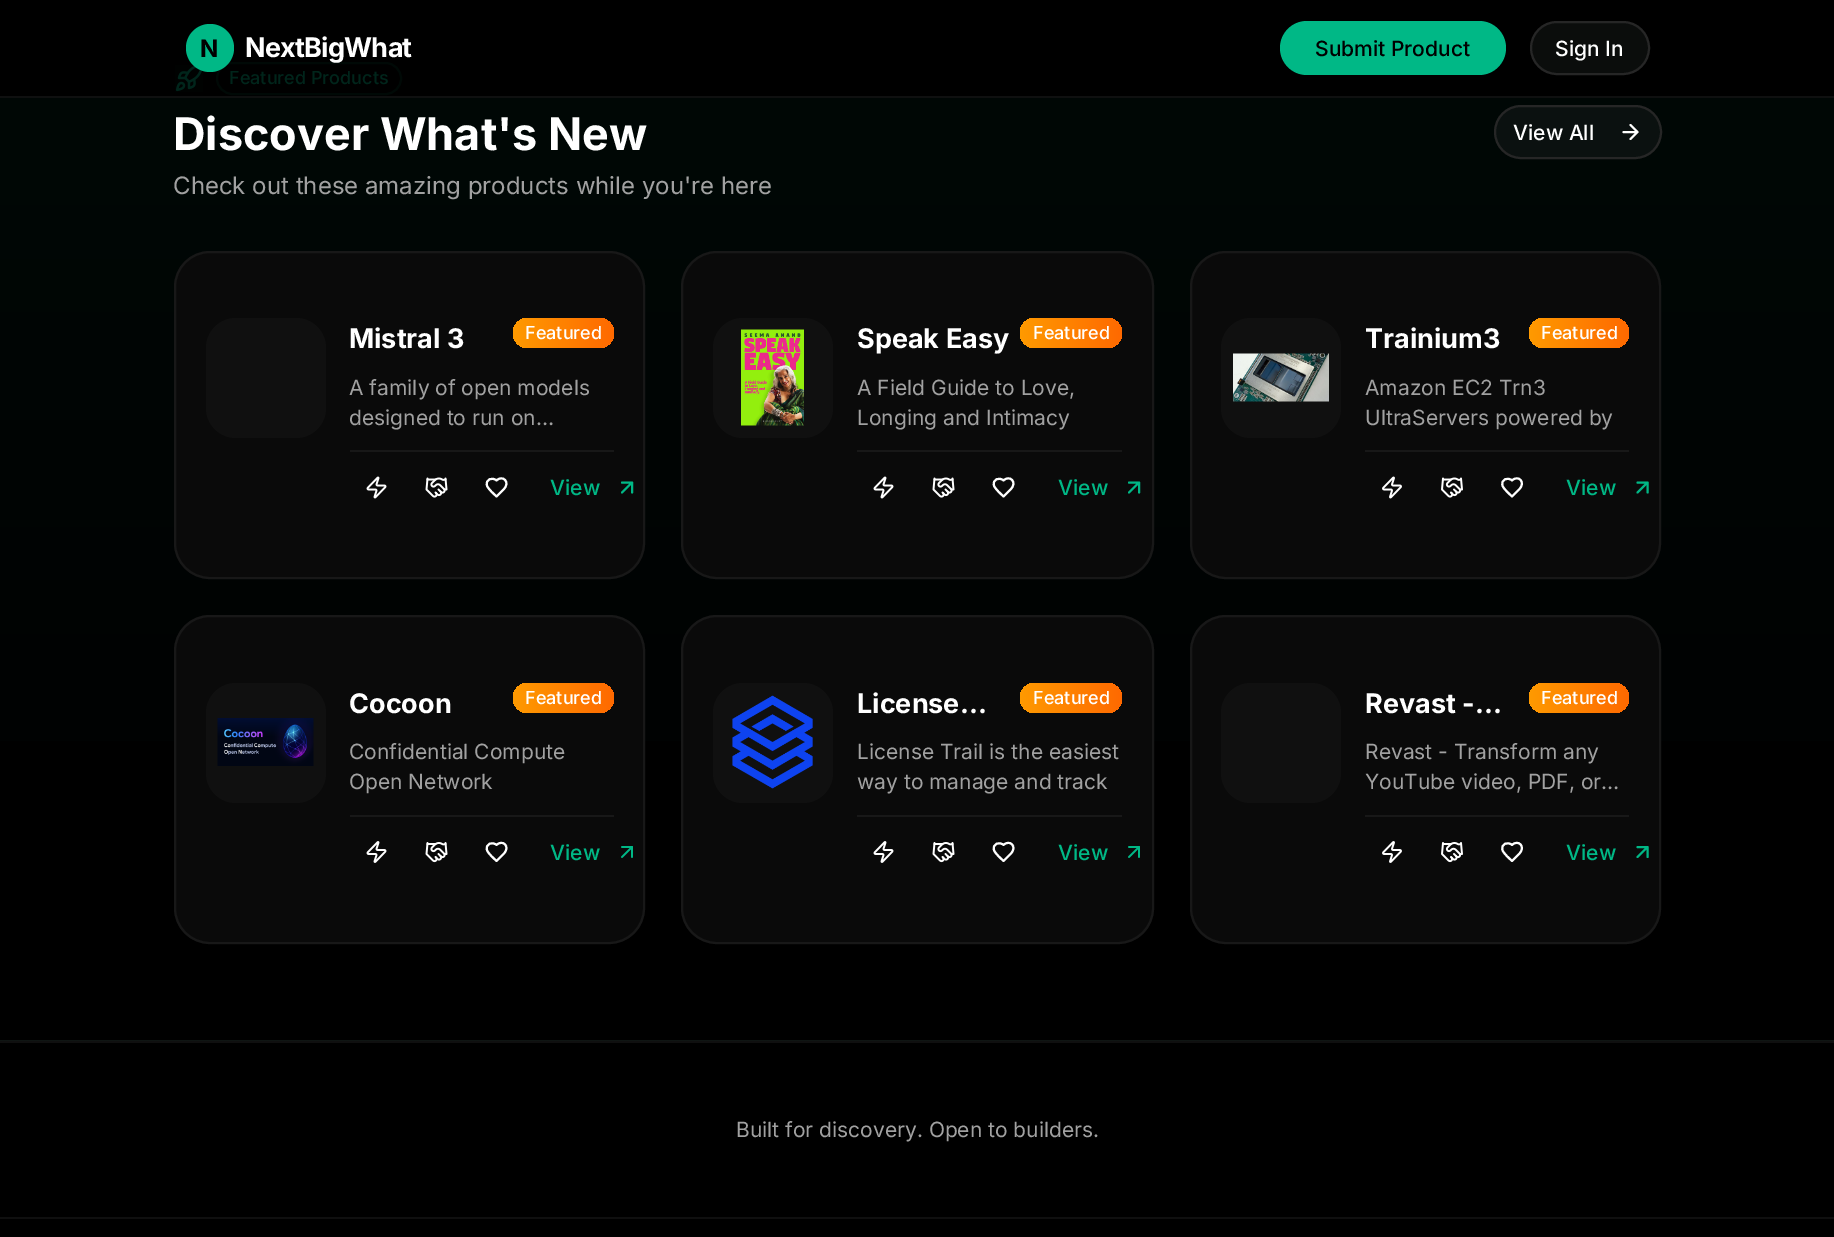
%!PS
<< /PageSize [1834 1237] /PageUsesTransparency true >> setpagedevice
/mt/moveto load def
/li/lineto load def
/ct/curveto load def
/cp/closepath load def
/fl/fill load def
/st/stroke load def
/gs/gsave load def
/gr/grestore load def
/lw/setlinewidth load def
/co { dup -16 bitshift 255 div exch dup -8 bitshift 255 and 255 div exch 255 and 255 div setrgbcolor } def
/fn { [ exch dup neg 0 0 3 -1 roll 0 0 ] selectfont } def
/tx { co fn moveto show } def
/bx { co rectfill } def
/al { dup .setfillconstantalpha .setstrokeconstantalpha } def
/ci { newpath 0 360 arc closepath } def
/rr { 5 dict begin { /r /h /w /y /x } { exch def } forall
  x r add y moveto x w add y 2 copy h add r arct x w add y h add x 1 index r arct
  x y h add x y r arct x y 2 copy exch w add exch r arct closepath end } def
/im { 5 dict begin { /h /w /y /x /name } { exch def } forall
  gsave x y translate w h scale
  w h 8 [w 0 0 h 0 0] name (r) file false 3 colorimage grestore end } def
0 .pushpdf14devicefilter
0 1237 translate 1 -1 scale
4 setmiterlimit
0 0 1834 1237 16#000000 bx
0 96 1834 2 16#0F1010 bx
16#00B886 co
1280 21 226 54 27 rr fl
16#0B0D0C co
1531 22 118 52 26 rr gs fl gr
16#262626 co
2 lw
st
gs 0 98 mt 1834 98 li 1834 741 li 0 741 li cp clip newpath
<< /ShadingType 2 /ColorSpace /DeviceRGB /Coords [917 -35 917 1040] /Extend [true true] /Function << /FunctionType 2 /Domain [0 1] /C0 [0 .035 .027] /C1 [0 0 0] /N 1 >> >> shfill gr
gs 0 1040 mt 1834 1040 li 1834 1041 li 0 1041 li cp clip newpath
<< /ShadingType 2 /ColorSpace /DeviceRGB /Coords [917 1040 917 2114] /Extend [true true] /Function << /FunctionType 2 /Domain [0 1] /C0 [.059 .082 .075] /C1 [.059 .059 .059] /N 1 >> >> shfill gr
(media/1.raw) 175 65 28 27 im
16#000906 co
217 63 184 31 15.5 rr st
16#0B1110 co
1495 106 166 52 26 rr gs fl gr
16#262626 co
st
16#FFFFFF co
1 setlinecap
1 setlinejoin
1623.5 132 mt 1637.5 132 li 1630.5 125 mt 1637.5 132 li 1630.5 139 li st
16#0A0A0A co
174 251 471 328 36 rr fl
0.5 al
16#262626 co
0 setlinecap
0 setlinejoin
175 252 469 326 35 rr st
1 al
16#101010 co
206 318 120 120 30 rr fl
gs 513 318 101 30 15 rr clip newpath
<< /ShadingType 2 /ColorSpace /DeviceRGB /Coords [513 333 614 333] /Extend [true true] /Function << /FunctionType 2 /Domain [0 1] /C0 [.996 .604 0] /C1 [1 .412 0] /N 1 >> >> shfill gr
350 450 264 2 16#181818 bx
(media/2.raw) 366 476 21 23 im
(media/3.raw) 425 477 23 21 im
16#FFFFFF co
1 setlinecap
1 setlinejoin
503.5 489.5 mt 511 482 502.5 474.5 496.5 480.5 ct 492.5 476.5 485 479.5 487 485.5 ct 488 489 494 494 496.5 496.5 ct cp st
16#00B886 co
622 482.5 mt 632 482.5 li 632 492.5 li 622 492.5 mt 632 482.5 li st
16#0A0A0A co
681 251 473 328 36 rr fl
0.5 al
16#262626 co
0 setlinecap
0 setlinejoin
682 252 471 326 35 rr st
1 al
16#101010 co
713 318 120 120 30 rr fl
(media/4.raw) 741 329 63 97 im
gs 1020 318 102 30 15 rr clip newpath
<< /ShadingType 2 /ColorSpace /DeviceRGB /Coords [1020 333 1122 333] /Extend [true true] /Function << /FunctionType 2 /Domain [0 1] /C0 [.996 .604 0] /C1 [1 .412 0] /N 1 >> >> shfill gr
857 450 265 2 16#181818 bx
(media/2.raw) 873 476 21 23 im
(media/3.raw) 932 477 23 21 im
16#FFFFFF co
1 setlinecap
1 setlinejoin
1010.5 489.5 mt 1018 482 1009.5 474.5 1003.5 480.5 ct 999.5 476.5 992 479.5 994 485.5 ct 995 489 1001 494 1003.5 496.5 ct cp st
16#00B886 co
1129 482.5 mt 1139 482.5 li 1139 492.5 li 1129 492.5 mt 1139 482.5 li st
16#0A0A0A co
1190 251 471 328 36 rr fl
0.5 al
16#262626 co
0 setlinecap
0 setlinejoin
1191 252 469 326 35 rr st
1 al
16#101010 co
1221 318 120 120 30 rr fl
(media/5.raw) 1233 353 96 49 im
gs 1529 318 100 30 15 rr clip newpath
<< /ShadingType 2 /ColorSpace /DeviceRGB /Coords [1529 333 1629 333] /Extend [true true] /Function << /FunctionType 2 /Domain [0 1] /C0 [.996 .604 0] /C1 [1 .412 0] /N 1 >> >> shfill gr
1365 450 264 2 16#181818 bx
(media/6.raw) 1382 476 20 23 im
(media/7.raw) 1441 477 22 21 im
16#FFFFFF co
1 setlinecap
1 setlinejoin
1519 489.5 mt 1526.5 482 1518 474.5 1512 480.5 ct 1508 476.5 1500.5 479.5 1502.5 485.5 ct 1503.5 489 1509.5 494 1512 496.5 ct cp st
16#00B886 co
1637.5 482.5 mt 1647.5 482.5 li 1647.5 492.5 li 1637.5 492.5 mt 1647.5 482.5 li st
16#0A0A0A co
174 615 471 329 36 rr fl
0.5 al
16#262626 co
0 setlinecap
0 setlinejoin
175 616 469 327 35 rr st
1 al
16#101010 co
206 683 120 120 30 rr fl
(media/8.raw) 217 718 97 48 im
gs 513 683 101 30 15 rr clip newpath
<< /ShadingType 2 /ColorSpace /DeviceRGB /Coords [513 698 614 698] /Extend [true true] /Function << /FunctionType 2 /Domain [0 1] /C0 [.996 .604 0] /C1 [1 .412 0] /N 1 >> >> shfill gr
350 815 264 2 16#181818 bx
(media/9.raw) 366 841 21 22 im
(media/10.raw) 425 842 23 21 im
16#FFFFFF co
1 setlinecap
1 setlinejoin
503.5 854 mt 511 846.5 502.5 839 496.5 845 ct 492.5 841 485 844 487 850 ct 488 853.5 494 858.5 496.5 861 ct cp st
(media/11.raw) 621 846 12 12 im
16#0A0A0A co
681 615 473 329 36 rr fl
0.5 al
16#262626 co
0 setlinecap
0 setlinejoin
682 616 471 327 35 rr st
1 al
16#101010 co
713 683 120 120 30 rr fl
(media/12.raw) 732 695 81 94 im
gs 1020 683 102 30 15 rr clip newpath
<< /ShadingType 2 /ColorSpace /DeviceRGB /Coords [1020 698 1122 698] /Extend [true true] /Function << /FunctionType 2 /Domain [0 1] /C0 [.996 .604 0] /C1 [1 .412 0] /N 1 >> >> shfill gr
857 815 265 2 16#181818 bx
(media/9.raw) 873 841 21 22 im
(media/10.raw) 932 842 23 21 im
16#FFFFFF co
1 setlinecap
1 setlinejoin
1010.5 854 mt 1018 846.5 1009.5 839 1003.5 845 ct 999.5 841 992 844 994 850 ct 995 853.5 1001 858.5 1003.5 861 ct cp st
(media/11.raw) 1128 846 12 12 im
16#0A0A0A co
1190 615 471 329 36 rr fl
0.5 al
16#262626 co
0 setlinecap
0 setlinejoin
1191 616 469 327 35 rr st
1 al
16#101010 co
1221 683 120 120 30 rr fl
gs 1529 683 100 30 15 rr clip newpath
<< /ShadingType 2 /ColorSpace /DeviceRGB /Coords [1529 698 1629 698] /Extend [true true] /Function << /FunctionType 2 /Domain [0 1] /C0 [.996 .604 0] /C1 [1 .412 0] /N 1 >> >> shfill gr
1365 815 264 2 16#181818 bx
(media/13.raw) 1382 841 20 22 im
(media/14.raw) 1441 842 22 21 im
16#FFFFFF co
1 setlinecap
1 setlinejoin
1519 854 mt 1526.5 846.5 1518 839 1512 845 ct 1508 841 1500.5 844 1502.5 850 ct 1503.5 853.5 1509.5 858.5 1512 861 ct cp st
16#00B886 co
1637.5 847 mt 1647.5 847 li 1647.5 857 li 1637.5 857 mt 1647.5 847 li st
0 1041 1834 2 16#0F0F0F bx
0 1217 1834 2 16#0F0F0F bx
/Inter-Bold 27 fn
16#FFFFFF co
245 57 mt -.75 0 (NextBigWhat) ashow
(Submit Product) 1315 56 /Inter-Medium 21 16#000000 tx
(Sign In) 1555 56 /Inter-Medium 21 16#FFFFFF tx
(Featured Products) 229 84 /Inter-Medium 18 16#00251B tx
16#00B886 co
210 48 24 ci fl
(N) 200 57 /Inter-Bold 24 16#000000 tx
(Discover What's New) 173 150 /Inter-Bold 45 16#FFFFFF tx
(Check out these amazing products while you're here) 173 194 /Inter-Regular 24 16#A1A1A1 tx
(View All) 1513 140 /Inter-Medium 21 16#FFFFFF tx
(Mistral 3) 349 348 /Inter-Bold 27 16#FFFFFF tx
(Featured) 525 339 /Inter-Medium 18 16#FFFFFF tx
(A family of open models) 349 395 /Inter-Regular 21 16#A1A1A1 tx
gs
350 372 264 60 rectclip
(designed to run on…) 349 425 /Inter-Regular 21 16#A1A1A1 tx
gr
(View) 550 495 /Inter-Medium 21 16#00B886 tx
(Speak Easy) 857 348 /Inter-Bold 27 16#FFFFFF tx
(Featured) 1033 339 /Inter-Medium 18 16#FFFFFF tx
(A Field Guide to Love,) 857 395 /Inter-Regular 21 16#A1A1A1 tx
(Longing and Intimacy) 857 425 /Inter-Regular 21 16#A1A1A1 tx
(View) 1058 495 /Inter-Medium 21 16#00B886 tx
(Trainium3) 1365 348 /Inter-Bold 27 16#FFFFFF tx
(Featured) 1541 339 /Inter-Medium 18 16#FFFFFF tx
(Amazon EC2 Trn3) 1365 395 /Inter-Regular 21 16#A1A1A1 tx
(UltraServers powered by) 1365 425 /Inter-Regular 21 16#A1A1A1 tx
(View) 1566 495 /Inter-Medium 21 16#00B886 tx
(Cocoon) 349 713 /Inter-Bold 27 16#FFFFFF tx
(Featured) 525 704 /Inter-Medium 18 16#FFFFFF tx
(Confidential Compute) 349 759 /Inter-Regular 21 16#A1A1A1 tx
(Open Network) 349 789 /Inter-Regular 21 16#A1A1A1 tx
(View) 550 860 /Inter-Medium 21 16#00B886 tx
(License…) 857 713 /Inter-Bold 27 16#FFFFFF tx
(Featured) 1033 704 /Inter-Medium 18 16#FFFFFF tx
(License Trail is the easiest) 857 759 /Inter-Regular 21 16#A1A1A1 tx
(way to manage and track) 857 789 /Inter-Regular 21 16#A1A1A1 tx
(View) 1058 860 /Inter-Medium 21 16#00B886 tx
(Revast -…) 1365 713 /Inter-Bold 27 16#FFFFFF tx
(Featured) 1541 704 /Inter-Medium 18 16#FFFFFF tx
(Revast - Transform any) 1365 759 /Inter-Regular 21 16#A1A1A1 tx
(YouTube video, PDF, or…) 1365 789 /Inter-Regular 21 16#A1A1A1 tx
(View) 1566 860 /Inter-Medium 21 16#00B886 tx
(Built for discovery. Open to builders.) 736 1137 /Inter-Regular 21 16#A1A1A1 tx
.poppdf14devicefilter showpage
